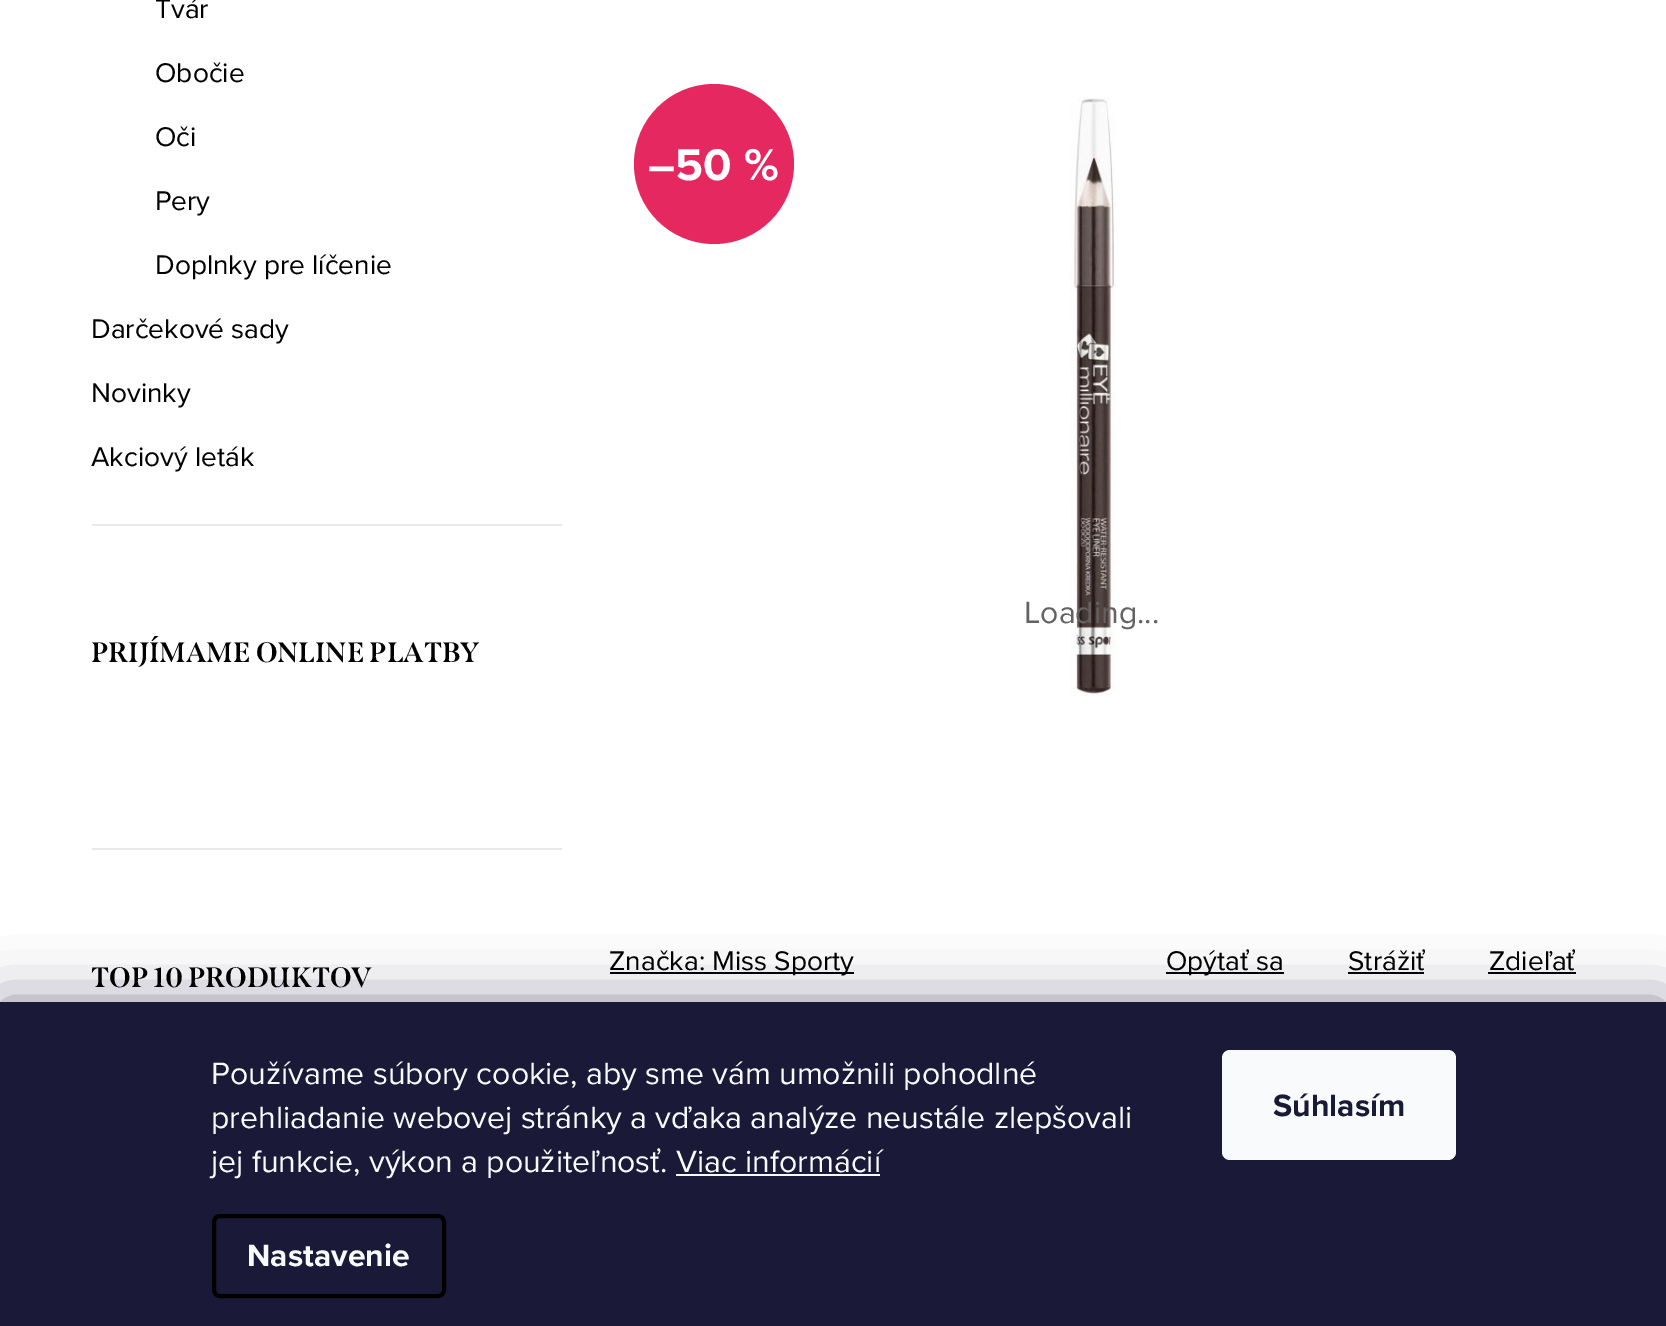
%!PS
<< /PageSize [1666 1326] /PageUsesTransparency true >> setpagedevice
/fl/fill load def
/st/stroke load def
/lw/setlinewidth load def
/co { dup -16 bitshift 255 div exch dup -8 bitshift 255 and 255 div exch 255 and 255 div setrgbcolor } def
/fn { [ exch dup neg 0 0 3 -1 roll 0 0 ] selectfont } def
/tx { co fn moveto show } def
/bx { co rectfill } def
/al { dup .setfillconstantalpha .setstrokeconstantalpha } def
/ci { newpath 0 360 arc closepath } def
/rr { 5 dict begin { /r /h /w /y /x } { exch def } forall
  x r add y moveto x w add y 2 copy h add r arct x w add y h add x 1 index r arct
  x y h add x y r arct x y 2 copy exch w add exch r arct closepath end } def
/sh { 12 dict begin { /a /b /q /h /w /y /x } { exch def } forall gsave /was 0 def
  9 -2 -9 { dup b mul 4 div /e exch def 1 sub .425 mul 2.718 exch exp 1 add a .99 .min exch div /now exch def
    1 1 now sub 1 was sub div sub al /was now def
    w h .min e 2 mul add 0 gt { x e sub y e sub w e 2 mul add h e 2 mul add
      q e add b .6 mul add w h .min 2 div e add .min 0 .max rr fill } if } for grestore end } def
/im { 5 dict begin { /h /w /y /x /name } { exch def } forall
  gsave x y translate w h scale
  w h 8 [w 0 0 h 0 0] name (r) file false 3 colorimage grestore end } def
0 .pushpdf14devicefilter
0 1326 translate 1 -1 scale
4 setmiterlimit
0 0 1666 1326 16#FFFFFF bx
92 524 470 2 16#E9E9E9 bx
92 848 470 2 16#E9E9E9 bx
16#E62861 co
714 164 80 ci fl
(media/1.raw) 1070 97 46 599 im
610 972 244 2 16#000000 bx
1166 972 118 2 16#000000 bx
1348 972 76 2 16#000000 bx
1488 972 88 2 16#000000 bx
16#1B1939 co
0 1002 1666 324 0 30 .5 sh
0 1002 1666 324 16#1A1937 bx
676 1174 204 2 16#F8FAFB bx
16#000000 co
4 lw
214 1216 230 80 6 rr st
16#F8FAFB co
1222 1050 234 110 8 rr fl
(Tvár) 155 18 /ProximaNova-Regular 28 16#000000 tx
(Obočie) 155 82 /ProximaNova-Regular 28 16#000000 tx
(Oči) 155 146 /ProximaNova-Regular 28 16#000000 tx
(Pery) 155 210 /ProximaNova-Regular 28 16#000000 tx
(Doplnky pre líčenie) 155 274 /ProximaNova-Regular 28 16#000000 tx
(Darčekové sady) 91 338 /ProximaNova-Regular 28 16#000000 tx
(Novinky) 91 402 /ProximaNova-Regular 28 16#000000 tx
(Akciový leták) 91 466 /ProximaNova-Regular 28 16#000000 tx
(PRIJÍMAME ONLINE PLATBY) 91 662 /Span-Bold 28 16#000000 tx
(TOP 10 PRODUKTOV) 91 987 /Span-Bold 28 16#000000 tx
(–50 %) 648 180 /ProximaNova-Bold 46 16#FFFFFF tx
(Loading...) 1024 623 /ProximaNova-Regular 32 16#646262 tx
(Značka: Miss Sporty) 609 970 /ProximaNova-Regular 28 16#000000 tx
(Opýtať sa) 1166 970 /ProximaNova-Regular 28 16#000000 tx
(Strážiť) 1348 970 /ProximaNova-Regular 28 16#000000 tx
(Zdieľať) 1489 970 /ProximaNova-Regular 28 16#000000 tx
(Používame súbory cookie, aby sme vám umožnili pohodlné) 211 1084 /ProximaNova-Regular 32 16#F8FAFB tx
(prehliadanie webovej stránky a vďaka analýze neustále zlepšovali) 211 1128 /ProximaNova-Regular 32 16#F8FAFB tx
(jej funkcie, výkon a použiteľnosť. Viac informácií) 211 1172 /ProximaNova-Regular 32 16#F8FAFB tx
(Nastavenie) 247 1266 /ProximaNova-Bold 32 16#F8FAFB tx
(Súhlasím) 1273 1116 /ProximaNova-Bold 32 16#1A1937 tx
.poppdf14devicefilter showpage
